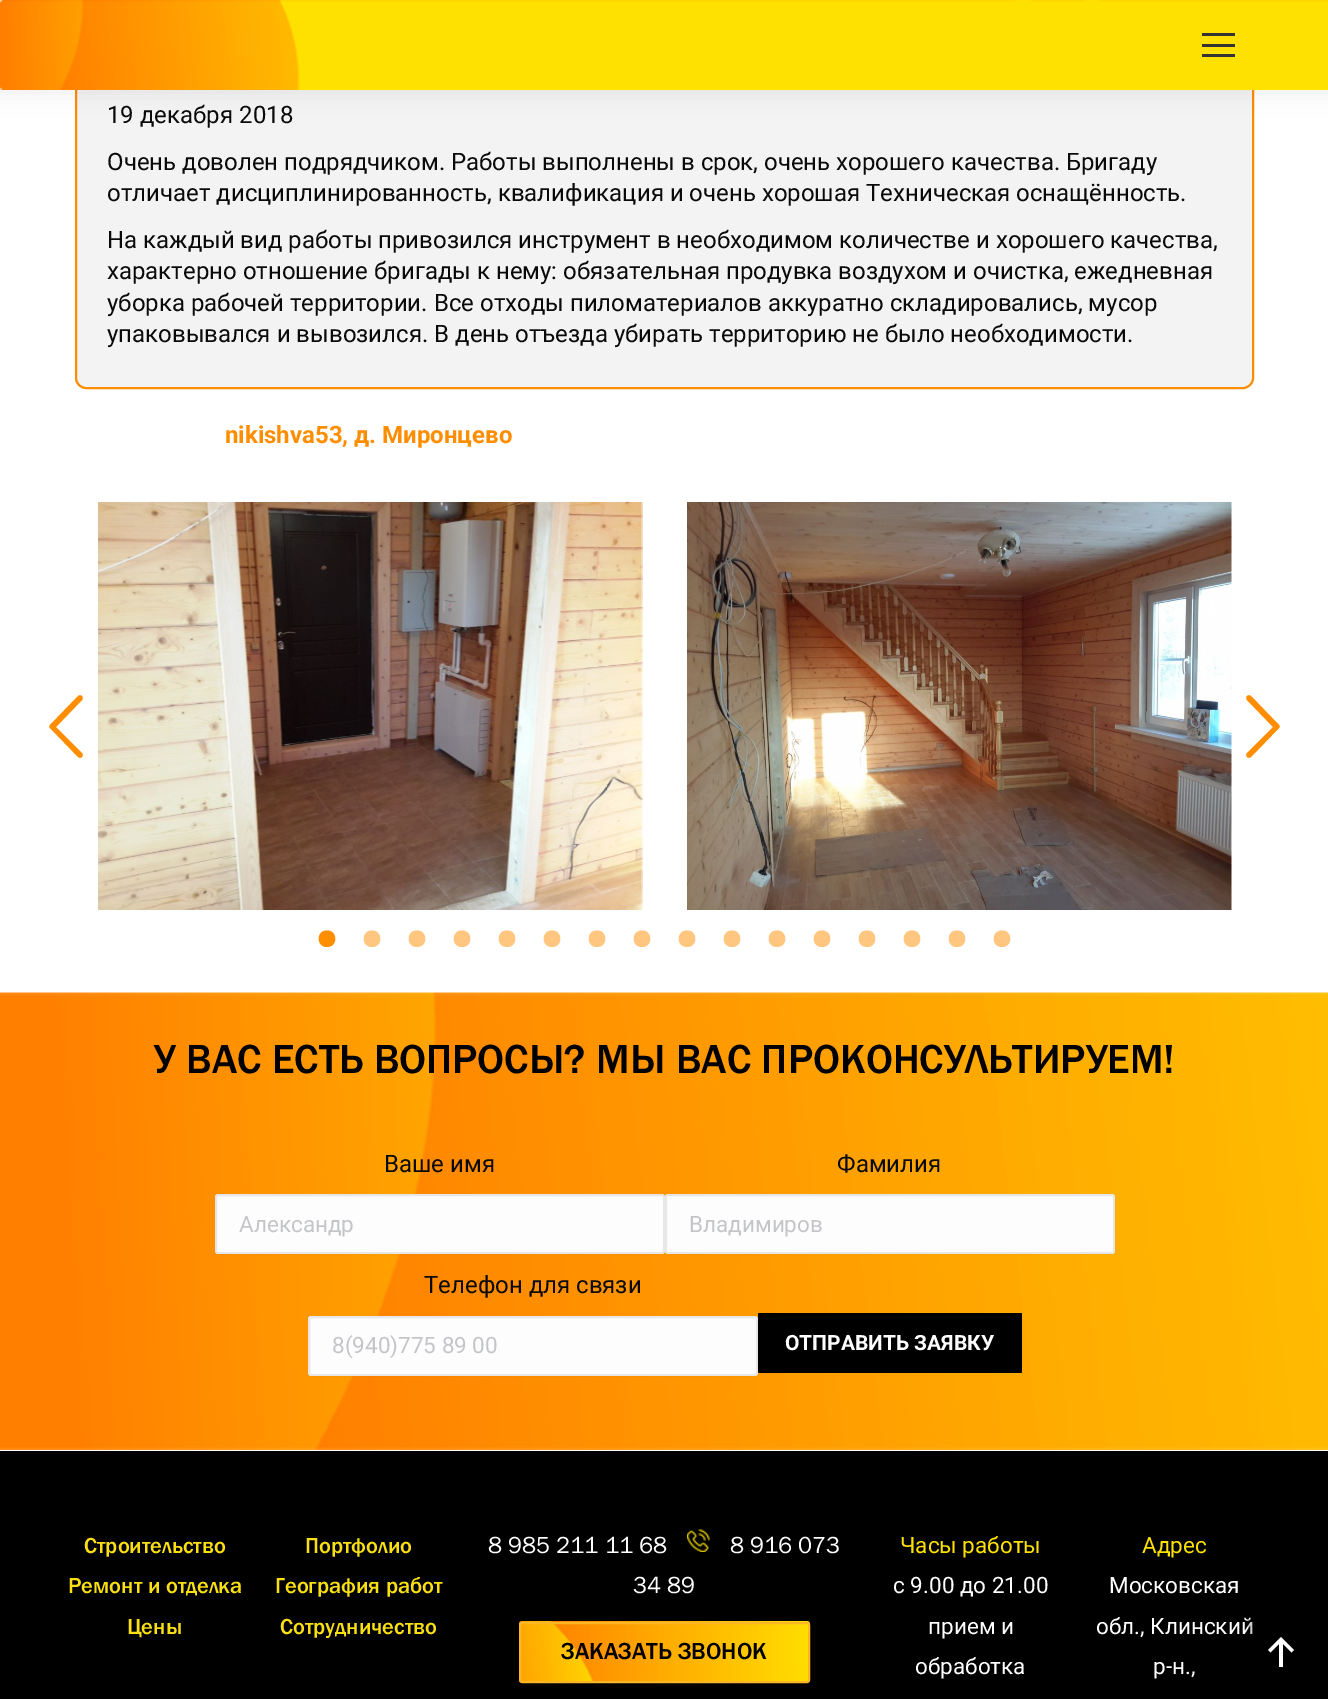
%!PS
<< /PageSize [1328 1699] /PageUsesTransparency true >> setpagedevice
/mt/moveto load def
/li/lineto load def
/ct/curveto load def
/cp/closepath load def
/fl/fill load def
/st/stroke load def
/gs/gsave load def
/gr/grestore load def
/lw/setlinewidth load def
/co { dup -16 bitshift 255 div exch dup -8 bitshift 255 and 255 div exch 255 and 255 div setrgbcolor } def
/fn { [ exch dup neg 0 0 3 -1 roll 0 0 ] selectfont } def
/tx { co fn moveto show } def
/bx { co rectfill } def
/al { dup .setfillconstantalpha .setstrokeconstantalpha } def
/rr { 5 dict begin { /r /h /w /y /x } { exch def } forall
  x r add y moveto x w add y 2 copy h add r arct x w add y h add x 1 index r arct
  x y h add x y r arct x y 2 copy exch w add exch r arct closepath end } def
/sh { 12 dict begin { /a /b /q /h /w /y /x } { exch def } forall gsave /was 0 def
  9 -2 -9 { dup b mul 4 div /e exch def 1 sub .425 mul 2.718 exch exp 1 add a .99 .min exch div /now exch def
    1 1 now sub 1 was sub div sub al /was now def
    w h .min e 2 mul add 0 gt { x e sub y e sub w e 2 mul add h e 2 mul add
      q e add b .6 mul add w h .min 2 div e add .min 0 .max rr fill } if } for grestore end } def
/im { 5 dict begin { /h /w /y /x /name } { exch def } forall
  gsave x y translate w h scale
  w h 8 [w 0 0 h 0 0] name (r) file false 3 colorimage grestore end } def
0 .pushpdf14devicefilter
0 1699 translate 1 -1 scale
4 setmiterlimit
0 0 1328 1699 16#FFFFFF bx
16#F4F3F3 co
76 69 1177 319 10 rr gs fl gr
16#FF8D00 co
2 lw
st
16#000000 co
-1 -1 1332 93 0 11 .07 sh
0 0 4 90 16#FFFFFF bx
(media/1.raw) 0 0 1328 90 im
1202 44 33 3 16#333333 bx
1202 33 33 3 16#333333 bx
1202 54 33 3 16#333333 bx
16#FF8D00 co
82 753 mt 83 754 83 756 82 757 ct 81 758 79 758 78 757 ct 50 728 li 49 727 49 726 50 725 ct 78 696 li 79 695 81 695 82 696 ct 83 697 83 699 82 700 ct 56 727 li cp fl
(media/2.raw) 98 502 545 408 im
(media/3.raw) 687 502 545 408 im
1247 753 mt 1246 754 1246 756 1247 757 ct 1248 758 1250 758 1251 757 ct 1279 728 li 1280 727 1280 726 1279 725 ct 1251 696 li 1250 695 1248 695 1247 696 ct 1246 697 1246 699 1247 700 ct 1273 727 li cp fl
327 930.5 mt 316 930.5 316 947 327 947 ct 338 947 338 930.5 327 930.5 ct cp fl
16#FFC680 co
372 930.5 mt 361 930.5 361 947 372 947 ct 383 947 383 930.5 372 930.5 ct cp 417 930.5 mt 406 930.5 406 947 417 947 ct 428 947 428 930.5 417 930.5 ct cp fl
462 930.5 mt 451 930.5 451 947 462 947 ct 473 947 473 930.5 462 930.5 ct cp 507 930.5 mt 496 930.5 496 947 507 947 ct 518 947 518 930.5 507 930.5 ct cp fl
552 930.5 mt 541 930.5 541 947 552 947 ct 563 947 563 930.5 552 930.5 ct cp 597 930.5 mt 586 930.5 586 947 597 947 ct 608 947 608 930.5 597 930.5 ct cp fl
642 930.5 mt 631 930.5 631 947 642 947 ct 653 947 653 930.5 642 930.5 ct cp 687 930.5 mt 676 930.5 676 947 687 947 ct 698 947 698 930.5 687 930.5 ct cp fl
732 930.5 mt 721 930.5 721 947 732 947 ct 743 947 743 930.5 732 930.5 ct cp 777 930.5 mt 766 930.5 766 947 777 947 ct 788 947 788 930.5 777 930.5 ct cp fl
822 930.5 mt 811 930.5 811 947 822 947 ct 833 947 833 930.5 822 930.5 ct cp 867 930.5 mt 856 930.5 856 947 867 947 ct 878 947 878 930.5 867 930.5 ct cp fl
912 930.5 mt 901 930.5 901 947 912 947 ct 923 947 923 930.5 912 930.5 ct cp 957 930.5 mt 946 930.5 946 947 957 947 ct 968 947 968 930.5 957 930.5 ct cp fl
1002 930.5 mt 991 930.5 991 947 1002 947 ct 1013 947 1013 930.5 1002 930.5 ct cp fl
(media/4.raw) 0 992 1328 458 im
16#FDFDFD co
215 1194 450 60 3 rr fl
0.11 al
16#333333 co
216 1195 448 58 2 rr st
1 al
16#FDFDFD co
665 1194 450 60 3 rr fl
0.11 al
16#333333 co
666 1195 448 58 2 rr st
1 al
16#FDFDFD co
308 1316 450 60 3 rr fl
0.11 al
16#333333 co
309 1317 448 58 2 rr st
1 al
16#000000 co
758 1313 264 60 1.5 rr fl
0 1451 1328 248 16#000000 bx
(media/5.raw) 687 1529 23 23 im
(media/6.raw) 519 1621 291 62 im
16#F9B728 co
520 1623 289 59 2 rr st
16#FFFFFF co
1268 1650 mt 1270.5 1652.5 li 1279 1644 li 1279 1667 li 1283 1667 li 1283 1644 li 1291.5 1652.5 li 1294 1650 li 1281 1637 li cp fl
(19 декабря 2018) 107 123 /Roboto-Regular 24 16#0A0A0A tx
(Очень доволен подрядчиком. Работы выполнены в срок, очень хорошего качества. Бригаду) 107 170 /Roboto-Regular 24 16#0A0A0A tx
(отличает дисциплинированность, квалификация и очень хорошая Техническая оснащённость.) 107 201 /Roboto-Regular 24 16#0A0A0A tx
(На каждый вид работы привозился инструмент в необходимом количестве и хорошего качества,) 107 248 /Roboto-Regular 24 16#0A0A0A tx
(характерно отношение бригады к нему: обязательная продувка воздухом и очистка, ежедневная) 107 279 /Roboto-Regular 24 16#0A0A0A tx
(уборка рабочей территории. Все отходы пиломатериалов аккуратно складировались, мусор) 107 311 /Roboto-Regular 24 16#0A0A0A tx
(упаковывался и вывозился. В день отъезда убирать территорию не было необходимости.) 107 342 /Roboto-Regular 24 16#0A0A0A tx
(nikishva53, д. Миронцево) 225 443 /Roboto-Bold 24 16#FF8D00 tx
(У ВАС ЕСТЬ ВОПРОСЫ? МЫ ВАС ПРОКОНСУЛЬТИРУЕМ!) 154 1073 /FranklinGothic-Medium 42 16#000000 tx
(Ваше имя) 384 1172 /Roboto-Regular 24 16#0A0A0A tx
(Александр) 239 1232 /Roboto-Regular 22.5 16#C4C5C9 tx
(Фамилия) 837 1172 /Roboto-Regular 24 16#0A0A0A tx
(Владимиров) 689 1232 /Roboto-Regular 22.5 16#C4C5C9 tx
(Телефон для связи) 424 1293 /Roboto-Regular 24 16#0A0A0A tx
(8\(940\)775 89 00) 332 1353 /Roboto-Regular 22.5 16#C4C5C9 tx
(ОТПРАВИТЬ ЗАЯВКУ) 785 1350 /Roboto-Bold 21 16#FFFFFF tx
(Строительство) 84 1553 /FranklinGothic-Medium 22.5 16#FAE013 tx
(Ремонт и отделка) 68 1593 /FranklinGothic-Medium 22.5 16#FAE013 tx
(Цены) 127 1634 /FranklinGothic-Medium 22.5 16#FAE013 tx
(Портфолио) 305 1553 /FranklinGothic-Medium 22.5 16#FAE013 tx
(География работ) 275 1593 /FranklinGothic-Medium 22.5 16#FAE013 tx
(Сотрудничество) 280 1634 /FranklinGothic-Medium 22.5 16#FAE013 tx
(8 985 211 11 68) 488 1553 /FranklinGothic-Regular 24 16#FFFFFF tx
(8 916 073) 730 1553 /FranklinGothic-Regular 24 16#FFFFFF tx
(34 89) 633 1593 /FranklinGothic-Regular 24 16#FFFFFF tx
(ЗАКАЗАТЬ ЗВОНОК) 561 1659 /FranklinGothic-Medium 24 16#000000 tx
(Часы работы) 900 1553 /Roboto-Regular 22.5 16#FFE100 tx
(с 9.00 до 21.00) 893 1593 /Roboto-Regular 22.5 16#FFFFFF tx
(прием и) 928 1634 /Roboto-Regular 22.5 16#FFFFFF tx
(обработка) 915 1674 /Roboto-Regular 22.5 16#FFFFFF tx
(Адрес) 1142 1553 /Roboto-Regular 22.5 16#FFE100 tx
(Московская) 1109 1593 /Roboto-Regular 22.5 16#FFFFFF tx
(обл., Клинский) 1096 1634 /Roboto-Regular 22.5 16#FFFFFF tx
(р-н.,) 1153 1674 /Roboto-Regular 22.5 16#FFFFFF tx
0.2 al
1248 1619 4 15 16#000000 bx
.poppdf14devicefilter showpage
